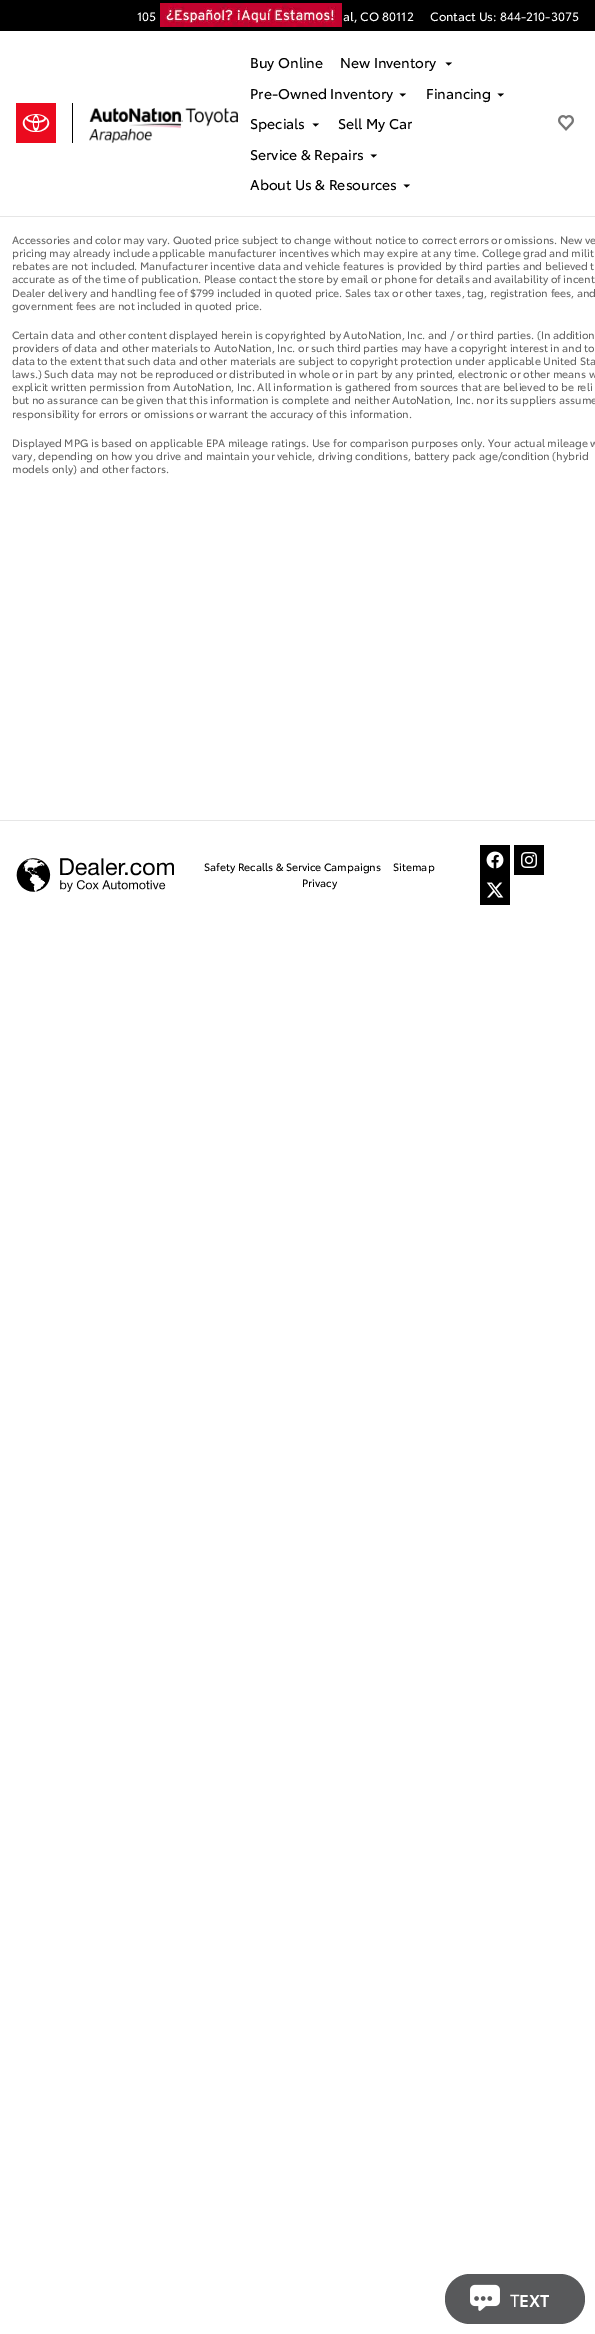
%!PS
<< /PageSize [595 2334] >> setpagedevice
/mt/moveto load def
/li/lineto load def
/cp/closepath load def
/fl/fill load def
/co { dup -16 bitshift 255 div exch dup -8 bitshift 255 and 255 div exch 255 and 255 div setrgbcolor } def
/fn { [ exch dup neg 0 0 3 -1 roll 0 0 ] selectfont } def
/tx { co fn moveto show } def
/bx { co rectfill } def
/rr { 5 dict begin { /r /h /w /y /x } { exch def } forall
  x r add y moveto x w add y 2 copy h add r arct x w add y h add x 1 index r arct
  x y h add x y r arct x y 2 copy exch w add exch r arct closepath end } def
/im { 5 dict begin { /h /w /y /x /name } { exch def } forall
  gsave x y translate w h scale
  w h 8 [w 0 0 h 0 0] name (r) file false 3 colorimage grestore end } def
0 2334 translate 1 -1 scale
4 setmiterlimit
0 0 595 2334 16#FFFFFF bx
0 216 595 1 16#E6E6E6 bx
0 0 595 31 16#000000 bx
(media/1.raw) 160 3 182 24 im
72 103 1 40 16#000000 bx
(media/2.raw) 16 103 40 40 im
(media/3.raw) 89 108 149 35 im
452 62.5 mt 445.5 62.5 li 448.5 65.5 li cp fl
406 93.5 mt 399.5 93.5 li 402.5 96.5 li cp fl
504 93.5 mt 497.5 93.5 li 500.5 96.5 li cp fl
319 123.5 mt 312.5 123.5 li 315.5 126.5 li cp fl
377 154.5 mt 370.5 154.5 li 373.5 157.5 li cp fl
410 184.5 mt 403.5 184.5 li 406.5 187.5 li cp fl
(media/4.raw) 558 115 16 16 im
0 820 595 1 16#E6E6E6 bx
(media/5.raw) 16 858 158 34 im
(media/6.raw) 480 845 30 30 im
(media/7.raw) 514 845 30 30 im
(media/8.raw) 480 875 30 30 im
16#58595B co
445 2274 140 50 25 rr fl
(media/9.raw) 470 2284 30 27 im
(105) 137 21 /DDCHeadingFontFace-Regular 12 16#FFFFFF tx
(al, CO 80112) 343 21 /DDCHeadingFontFace-Regular 12 16#FFFFFF tx
(Contact Us: 844-210-3075) 430 21 /DDCHeadingFontFace-Regular 12 16#FFFFFF tx
(Buy Online) 250 68 /DDCHeadingFontFace-Regular 14 16#000000 tx
(New Inventory) 340 68 /DDCHeadingFontFace-Regular 14 16#000000 tx
(Pre-Owned Inventory) 250 99 /DDCHeadingFontFace-Regular 14 16#000000 tx
(Financing) 426 99 /DDCHeadingFontFace-Regular 14 16#000000 tx
(Specials) 250 129 /DDCHeadingFontFace-Regular 14 16#000000 tx
(Sell My Car) 338 129 /DDCHeadingFontFace-Regular 14 16#000000 tx
(Service & Repairs) 250 160 /DDCHeadingFontFace-Regular 14 16#000000 tx
(About Us & Resources) 250 190 /DDCHeadingFontFace-Regular 14 16#000000 tx
(Accessories and color may vary. Quoted price subject to change without notice to correct errors or omissions. New ve) 12 244 /DDCHeadingFontFace-Regular 10.5 16#666666 tx
(pricing may already include applicable manufacturer incentives which may expire at any time. College grad and milit) 12 257 /DDCHeadingFontFace-Regular 10.5 16#666666 tx
(rebates are not included. Manufacturer incentive data and vehicle features is provided by third parties and believed t) 12 270 /DDCHeadingFontFace-Regular 10.5 16#666666 tx
(accurate as of the time of publication. Please contact the store by email or phone for details and availability of incent) 12 283 /DDCHeadingFontFace-Regular 10.5 16#666666 tx
(Dealer delivery and handling fee of $799 included in quoted price. Sales tax or other taxes, tag, registration fees, and) 12 297 /DDCHeadingFontFace-Regular 10.5 16#666666 tx
(government fees are not included in quoted price.) 12 310 /DDCHeadingFontFace-Regular 10.5 16#666666 tx
(Certain data and other content displayed herein is copyrighted by AutoNation, Inc. and / or third parties. \(In addition) 12 339 /DDCHeadingFontFace-Regular 10.5 16#666666 tx
(providers of data and other materials to AutoNation, Inc. or such third parties may have a copyright interest in and to) 12 352 /DDCHeadingFontFace-Regular 10.5 16#666666 tx
(data to the extent that such data and other materials are subject to copyright protection under applicable United Sta) 12 365 /DDCHeadingFontFace-Regular 10.5 16#666666 tx
(laws.\) Such data may not be reproduced or distributed in whole or in part by any printed, electronic or other means w) 12 378 /DDCHeadingFontFace-Regular 10.5 16#666666 tx
(explicit written permission from AutoNation, Inc. All information is gathered from sources that are believed to be reli) 12 391 /DDCHeadingFontFace-Regular 10.5 16#666666 tx
(but no assurance can be given that this information is complete and neither AutoNation, Inc. nor its suppliers assume) 12 404 /DDCHeadingFontFace-Regular 10.5 16#666666 tx
(responsibility for errors or omissions or warrant the accuracy of this information.) 12 418 /DDCHeadingFontFace-Regular 10.5 16#666666 tx
(Displayed MPG is based on applicable EPA mileage ratings. Use for comparison purposes only. Your actual mileage w) 12 447 /DDCHeadingFontFace-Regular 10.5 16#666666 tx
(vary, depending on how you drive and maintain your vehicle, driving conditions, battery pack age/condition \(hybrid) 12 460 /DDCHeadingFontFace-Regular 10.5 16#666666 tx
(models only\) and other factors.) 12 473 /DDCHeadingFontFace-Regular 10.5 16#666666 tx
(Safety Recalls & Service Campaigns) 204 871 /DDCHeadingFontFace-Regular 10.5 16#000000 tx
(Sitemap) 393 871 /DDCHeadingFontFace-Regular 10.5 16#000000 tx
(Privacy) 302 887 /DDCHeadingFontFace-Regular 10.5 16#000000 tx
(T) 510 2307 /NotoSans-Regular 17 16#FFFFFF tx
(EXT) 519 2307 /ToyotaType-SemiBold 17 16#FFFFFF tx
showpage
